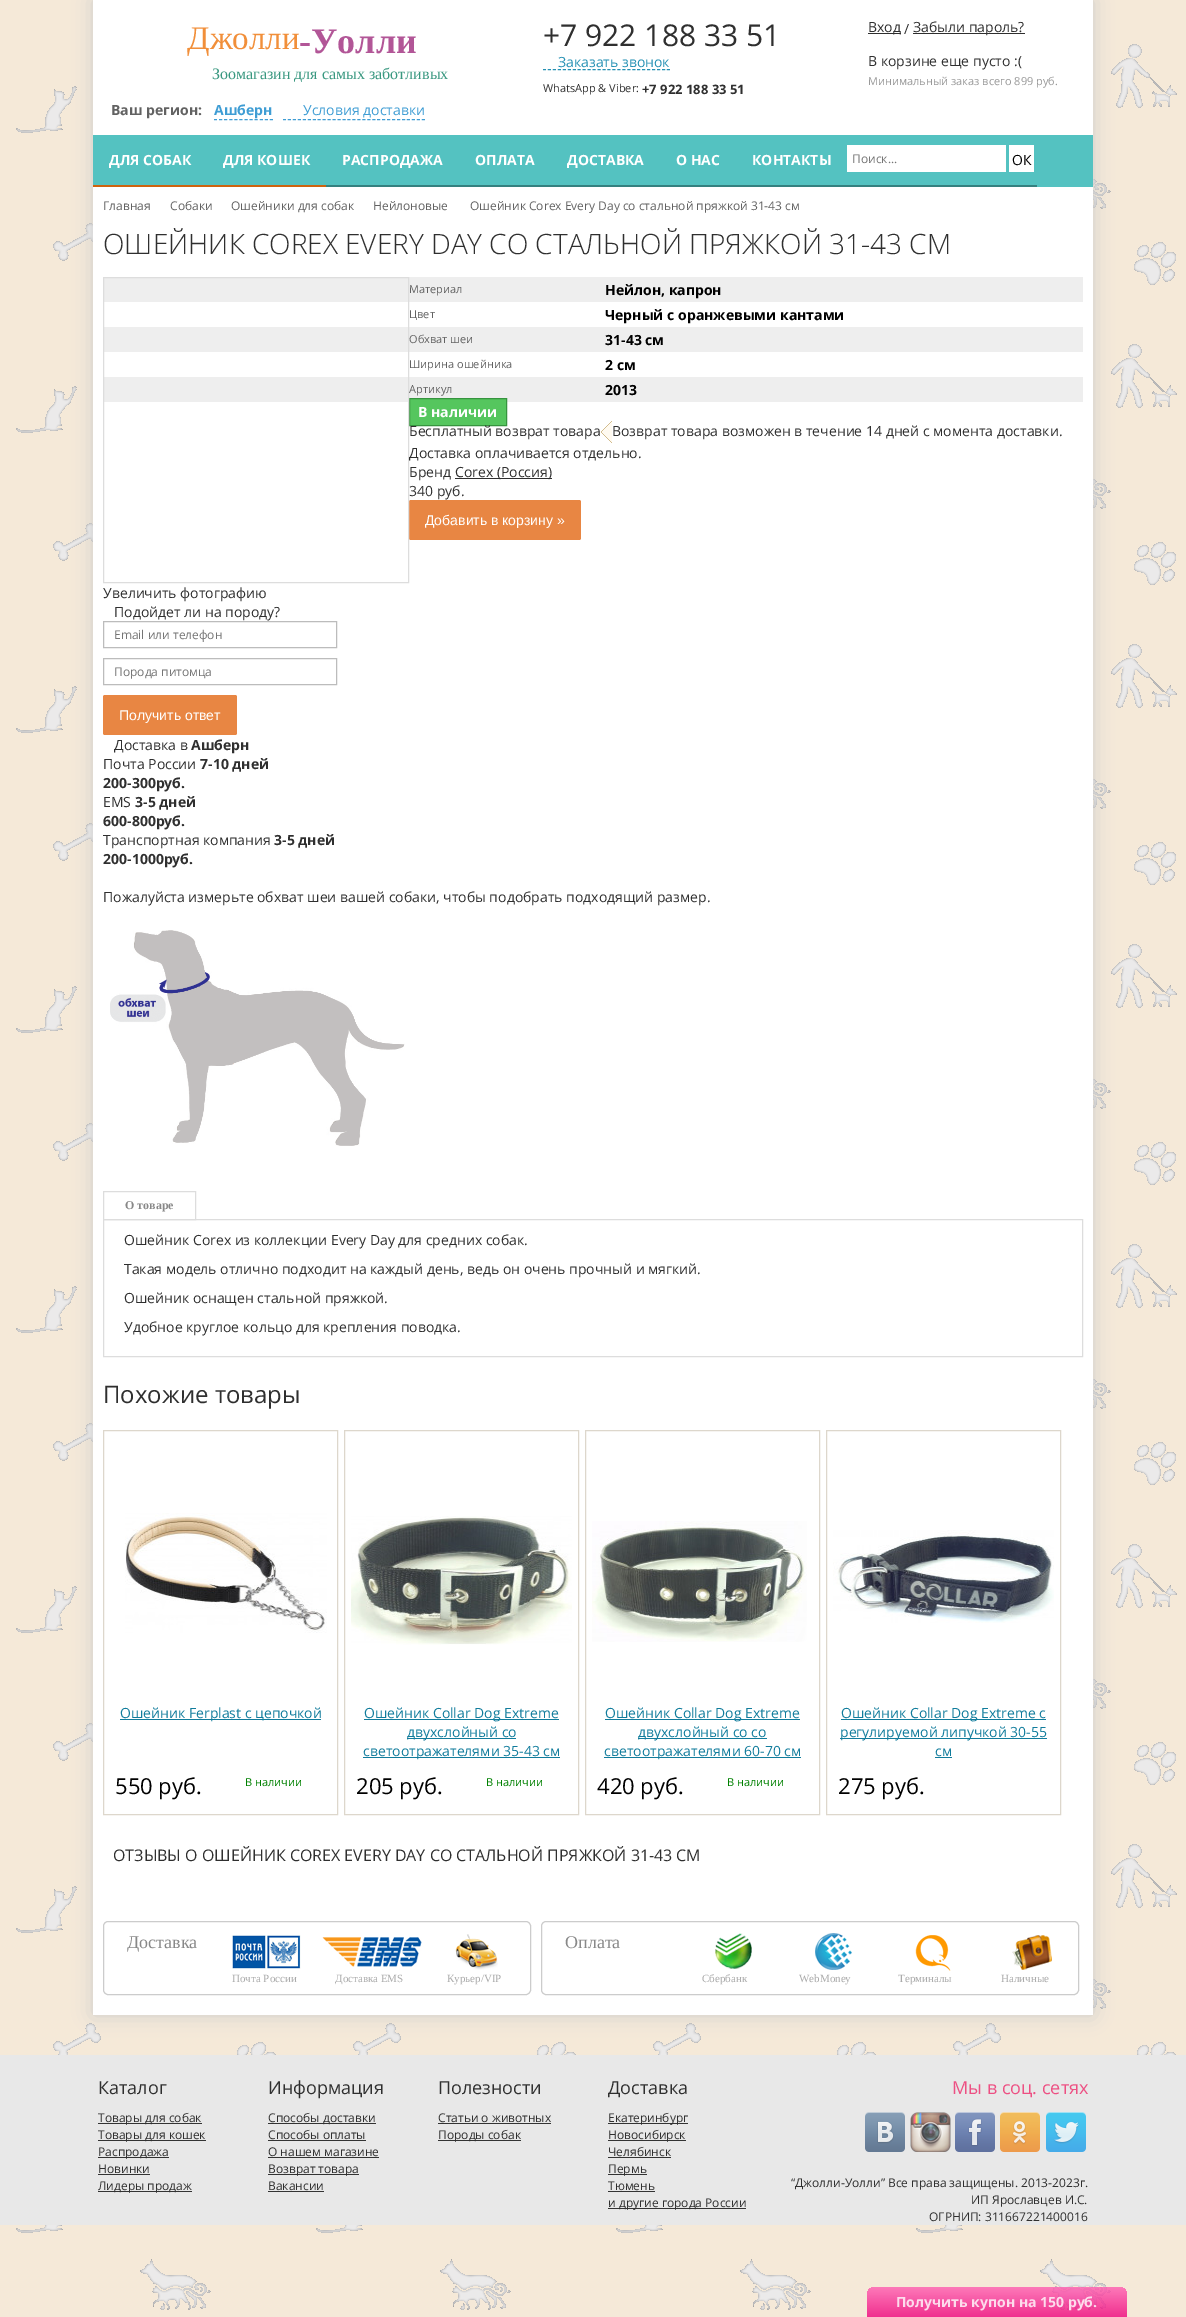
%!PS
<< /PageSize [1186 2317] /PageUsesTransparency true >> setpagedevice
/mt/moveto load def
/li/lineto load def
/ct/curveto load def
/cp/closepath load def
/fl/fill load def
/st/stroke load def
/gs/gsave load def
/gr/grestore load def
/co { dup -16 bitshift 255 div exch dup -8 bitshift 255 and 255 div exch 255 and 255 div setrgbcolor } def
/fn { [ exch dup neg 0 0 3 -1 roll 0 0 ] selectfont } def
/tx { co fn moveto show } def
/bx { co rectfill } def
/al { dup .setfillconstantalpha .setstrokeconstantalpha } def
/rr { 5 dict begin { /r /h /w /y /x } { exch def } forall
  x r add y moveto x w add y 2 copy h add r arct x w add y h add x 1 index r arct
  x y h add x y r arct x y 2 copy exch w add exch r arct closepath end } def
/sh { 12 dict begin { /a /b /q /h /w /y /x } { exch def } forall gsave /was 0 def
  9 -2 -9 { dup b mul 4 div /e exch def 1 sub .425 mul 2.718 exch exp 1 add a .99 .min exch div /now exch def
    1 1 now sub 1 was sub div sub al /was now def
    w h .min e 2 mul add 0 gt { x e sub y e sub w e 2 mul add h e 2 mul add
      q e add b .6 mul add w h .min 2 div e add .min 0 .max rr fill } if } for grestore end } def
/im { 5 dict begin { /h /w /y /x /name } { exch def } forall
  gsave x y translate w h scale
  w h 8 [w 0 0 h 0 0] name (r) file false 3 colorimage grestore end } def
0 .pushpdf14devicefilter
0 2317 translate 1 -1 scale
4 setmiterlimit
0 0 1186 2317 16#F5E9D8 bx
(media/1.raw) 16 44 1161 2266 im
16#CCCCCC co
93 0 1000 2015 0 10 1 sh
93 0 1000 2015 16#FFFFFF bx
16#2691B4 co
[3 1.96] 0 setdash
543 69.5 mt 670 69.5 li st
868 33 33 1 16#2F2F2F bx
913 33 112 1 16#2F2F2F bx
16#3F9DD4 co
[3 2.09] 0 setdash
214 119.5 mt 273 119.5 li st
[3 1.96] 0 setdash
283 119.5 mt 425 119.5 li st
93 135 1000 52 16#54C2C1 bx
93 185 233 2 16#CE630F bx
326 185 711 2 16#358180 bx
847 145 159 27 16#FFFFFF bx
1009 145 25 27 16#FFFFFF bx
104 277 979 25 16#EEEEEE bx
104 327 979 25 16#EEEEEE bx
104 377 979 25 16#EEEEEE bx
16#55C65E co
409.5 398.5 mt 506.5 398.5 li 506.5 425.5 li 409.5 425.5 li cp gs fl gr
16#36943E co
[] 0 setdash
st
(media/2.raw) 601 421 11 22 im
455 478 97 1 16#2F2F2F bx
16#E88643 co
409 500 172 40 2 rr fl
16#DDDDDD co
103.5 277.5 305 305 rectstroke
16#BCBCBC co
103.5 621.5 233 26 rectstroke
103.5 658.5 233 26 rectstroke
16#E88643 co
103 695 134 40 2 rr fl
(media/3.raw) 110 930 295 216 im
16#DDDDDD co
103.5 1219.5 979 137 rectstroke
103.5 1191.5 92 28 rectstroke
16#DDD7CC co
103.5 1430.5 234 384 rectstroke
(media/4.raw) 125 1513 202 120 im
120 1719 201 1 16#117C9C bx
16#DDD7CC co
344.5 1430.5 234 384 rectstroke
(media/5.raw) 351 1516 221 129 im
364 1719 195 1 16#117C9C bx
407 1738 109 1 16#117C9C bx
363 1757 197 1 16#117C9C bx
16#DDD7CC co
585.5 1430.5 234 384 rectstroke
(media/6.raw) 592 1521 215 121 im
605 1719 195 1 16#117C9C bx
638 1738 129 1 16#117C9C bx
604 1757 197 1 16#117C9C bx
16#DDD7CC co
826.5 1430.5 234 384 rectstroke
(media/7.raw) 833 1530 221 93 im
841 1719 205 1 16#117C9C bx
840 1738 207 1 16#117C9C bx
935 1757 17 1 16#117C9C bx
16#CCCCCC co
103.5 1921.5 427 73 4.5 rr st
(media/8.raw) 232 1935 69 34 im
(media/9.raw) 322 1937 100 30 im
(media/10.raw) 455 1934 43 36 im
541.5 1921.5 537 73 4.5 rr st
(media/11.raw) 715 1933 37 36 im
(media/12.raw) 815 1933 37 37 im
(media/13.raw) 915 1935 36 36 im
(media/14.raw) 1012 1935 40 35 im
0 2055 1186 170 16#E8E8E8 bx
98 2123 104 1 16#333333 bx
98 2140 108 1 16#333333 bx
98 2157 71 1 16#333333 bx
98 2174 52 1 16#333333 bx
98 2191 94 1 16#333333 bx
268 2123 108 1 16#333333 bx
268 2140 98 1 16#333333 bx
268 2157 111 1 16#333333 bx
268 2174 91 1 16#333333 bx
268 2191 56 1 16#333333 bx
438 2123 113 1 16#333333 bx
438 2140 83 1 16#333333 bx
608 2123 80 1 16#333333 bx
608 2140 78 1 16#333333 bx
608 2157 63 1 16#333333 bx
608 2174 39 1 16#333333 bx
608 2191 47 1 16#333333 bx
608 2208 138 1 16#333333 bx
(media/15.raw) 865 2112 40 40 im
(media/16.raw) 910 2112 41 40 im
(media/17.raw) 955 2112 40 40 im
(media/18.raw) 1000 2112 40 40 im
(media/19.raw) 1046 2112 40 40 im
0.8 al
gs 875 2287 mt 1119 2287 li 1123.5 2287 1127 2290.5 1127 2295 ct 1127 2317 li 867 2317 li 867 2295 li 867 2290.5 870.5 2287 875 2287 ct cp clip newpath
<< /ShadingType 2 /ColorSpace /DeviceRGB /Coords [997 2287 997 2317] /Extend [true true] /Function << /FunctionType 2 /Domain [0 1] /C0 [1 .365 .694] /C1 [.937 .004 .486] /N 1 >> >> shfill gr
1 al
(Джолли) 187 49 /LiberationSerif-Regular 33 16#F18F3A tx
(-Уолли) 299 53 /LiberationSerif-Bold 36 16#B25697 tx
(Зоомагазин для самых заботливых) 212 79 /LiberationSerif-Regular 16 16#399880 tx
(+7 922 188 33 51) 543 46 /OpenSans-Regular 30 16#2F2F2F tx
(Заказать звонок) 558 67 /OpenSans-Regular 14 16#2691B4 tx
(WhatsApp & Viber:) 543 92 /OpenSans-Regular 11 16#2F2F2F tx
(+7 922 188 33 51) 642 94 /OpenSans-Bold 13 16#2F2F2F tx
(Вход) 868 32 /OpenSans-Regular 14 16#2F2F2F tx
(/) 904 34 /OpenSans-Regular 14 16#2F2F2F tx
(Забыли пароль?) 913 32 /OpenSans-Regular 14 16#2F2F2F tx
(В корзине еще пусто :\() 868 66 /OpenSans-Regular 14 16#2F2F2F tx
(Минимальный заказ всего 899 руб.) 868 85 /OpenSans-Regular 11 16#999999 tx
(Ваш регион:) 111 115 /OpenSans-Bold 14 16#626262 tx
(Ашберн) 214 115 /OpenSans-Bold 14 16#3F9DD4 tx
(Условия доставки) 303 115 /OpenSans-Regular 14 16#3F9DD4 tx
(ДЛЯ СОБАК) 109 165 /OpenSans-Bold 14 16#FFFFFF tx
(ДЛЯ КОШЕК) 223 165 /OpenSans-Bold 14 16#FFFFFF tx
(РАСПРОДАЖА) 342 165 /OpenSans-Bold 14 16#FFFFFF tx
(ОПЛАТА) 475 165 /OpenSans-Bold 14 16#FFFFFF tx
(ДОСТАВКА) 567 165 /OpenSans-Bold 14 16#FFFFFF tx
(О НАС) 676 165 /OpenSans-Bold 14 16#FFFFFF tx
(КОНТАКТЫ) 752 165 /OpenSans-Bold 14 16#FFFFFF tx
(Поиск...) 852 163 /OpenSans-Regular 12 16#757575 tx
(ОК) 1012 165 /OpenSans-Regular 14 16#000000 tx
(Главная) 103 210 /OpenSans-Regular 12 16#626262 tx
(Собаки) 170 210 /OpenSans-Regular 12 16#626262 tx
(Ошейники для собак) 231 210 /OpenSans-Regular 12 16#626262 tx
(Нейлоновые) 373 210 /OpenSans-Regular 12 16#626262 tx
(Ошейник Corex Every Day со стальной пряжкой 31-43 см) 470 210 /OpenSans-Regular 12 16#626262 tx
(ОШЕЙНИК COREX EVERY DAY СО СТАЛЬНОЙ ПРЯЖКОЙ 31-43 СМ) 103 254 /OpenSans-Light 28 16#2F2F2F tx
(Материал) 409 293 /OpenSans-Regular 11 16#626262 tx
(Нейлон, капрон) 605 295 /OpenSans-Bold 14 16#000000 tx
(Цвет) 409 318 /OpenSans-Regular 11 16#626262 tx
(Черный с оранжевыми кантами) 605 320 /OpenSans-Bold 14 16#000000 tx
(Обхват шеи) 409 343 /OpenSans-Regular 11 16#626262 tx
(31-43 см) 605 345 /OpenSans-Bold 14 16#000000 tx
(Ширина ошейника) 409 368 /OpenSans-Regular 11 16#626262 tx
(2 см) 605 370 /OpenSans-Bold 14 16#000000 tx
(Артикул) 409 393 /OpenSans-Regular 11 16#626262 tx
(2013) 605 395 /OpenSans-Bold 14 16#000000 tx
(В наличии) 418 417 /OpenSans-Bold 14 16#FFFFFF tx
(Бесплатный возврат товара) 409 436 /OpenSans-Regular 14 16#2F2F2F tx
(Возврат товара возможен в течение 14 дней с момента доставки.) 612 436 /OpenSans-Regular 14 16#2F2F2F tx
(Доставка оплачивается отдельно.) 409 458 /OpenSans-Regular 14 16#2F2F2F tx
(Бренд) 409 477 /OpenSans-Regular 14 16#2F2F2F tx
(Corex \(Россия\)) 455 477 /OpenSans-Regular 14 16#2F2F2F tx
(340 руб.) 409 496 /OpenSans-Regular 14 16#2F2F2F tx
(Добавить в корзину ») 425 525 /LiberationSans-Regular 14 16#FFFFFF tx
(Увеличить фотографию) 103 598 /OpenSans-Regular 14 16#2F2F2F tx
(Подойдет ли на породу?) 114 617 /OpenSans-Regular 14 16#2F2F2F tx
(Email или телефон) 114 639 /OpenSans-Regular 12 16#757575 tx
(Порода питомца) 114 676 /OpenSans-Regular 12 16#757575 tx
(Получить ответ) 119 720 /LiberationSans-Regular 14 16#FFFFFF tx
(Доставка в) 114 750 /OpenSans-Regular 14 16#2F2F2F tx
(Ашберн) 191 750 /OpenSans-Bold 14 16#2F2F2F tx
(Почта России) 103 769 /OpenSans-Regular 14 16#2F2F2F tx
(7-10 дней) 200 769 /OpenSans-Bold 14 16#2F2F2F tx
(200-300руб.) 103 788 /OpenSans-Bold 14 16#2F2F2F tx
(EMS) 103 807 /OpenSans-Regular 14 16#2F2F2F tx
(3-5 дней) 135 807 /OpenSans-Bold 14 16#2F2F2F tx
(600-800руб.) 103 826 /OpenSans-Bold 14 16#2F2F2F tx
(Транспортная компания) 103 845 /OpenSans-Regular 14 16#2F2F2F tx
(3-5 дней) 274 845 /OpenSans-Bold 14 16#2F2F2F tx
(200-1000руб.) 103 864 /OpenSans-Bold 14 16#2F2F2F tx
(Пожалуйста измерьте обхват шеи вашей собаки, чтобы подобрать подходящий размер.) 103 902 /OpenSans-Regular 14 16#2F2F2F tx
(О товаре) 125 1209 /LiberationSerif-Bold 12 16#888888 tx
(Ошейник Corex из коллекции Every Day для средних собак.) 124 1245 /OpenSans-Regular 14 16#2F2F2F tx
(Такая модель отлично подходит на каждый день, ведь он очень прочный и мягкий.) 124 1274 /OpenSans-Regular 14 16#2F2F2F tx
(Ошейник оснащен стальной пряжкой.) 124 1303 /OpenSans-Regular 14 16#2F2F2F tx
(Удобное круглое кольцо для крепления поводка.) 124 1332 /OpenSans-Regular 14 16#2F2F2F tx
(Похожие товары) 103 1403 /OpenSans-Regular 24 16#2F2F2F tx
(Ошейник Ferplast с цепочкой) 120 1718 /OpenSans-Regular 14 16#117C9C tx
(550 руб.) 115 1794 /OpenSans-Regular 22 16#000000 tx
(В наличии) 245 1786 /OpenSans-Regular 11 16#008000 tx
(Ошейник Collar Dog Extreme) 364 1718 /OpenSans-Regular 14 16#117C9C tx
(двухслойный со) 407 1737 /OpenSans-Regular 14 16#117C9C tx
(светоотражателями 35-43 см) 363 1756 /OpenSans-Regular 14 16#117C9C tx
(205 руб.) 356 1794 /OpenSans-Regular 22 16#000000 tx
(В наличии) 486 1786 /OpenSans-Regular 11 16#008000 tx
(Ошейник Collar Dog Extreme) 605 1718 /OpenSans-Regular 14 16#117C9C tx
(двухслойный со со) 638 1737 /OpenSans-Regular 14 16#117C9C tx
(светоотражателями 60-70 см) 604 1756 /OpenSans-Regular 14 16#117C9C tx
(420 руб.) 597 1794 /OpenSans-Regular 22 16#000000 tx
(В наличии) 727 1786 /OpenSans-Regular 11 16#008000 tx
(Ошейник Collar Dog Extreme с) 841 1718 /OpenSans-Regular 14 16#117C9C tx
(регулируемой липучкой 30-55) 840 1737 /OpenSans-Regular 14 16#117C9C tx
(см) 935 1756 /OpenSans-Regular 14 16#117C9C tx
(275 руб.) 838 1794 /OpenSans-Regular 22 16#000000 tx
(ОТЗЫВЫ О ОШЕЙНИК COREX EVERY DAY СО СТАЛЬНОЙ ПРЯЖКОЙ 31-43 СМ) 113 1861 /OpenSans-Regular 16 16#2F2F2F tx
(Доставка) 127 1948 /LiberationSerif-Regular 18 16#888888 tx
(Почта России) 232 1982 /LiberationSerif-Regular 11 16#AAAAAA tx
(Доставка EMS) 335 1982 /LiberationSerif-Regular 11 16#AAAAAA tx
(Курьер/VIP) 447 1982 /LiberationSerif-Regular 11 16#AAAAAA tx
(Оплата) 565 1948 /LiberationSerif-Regular 18 16#888888 tx
(Сбербанк) 702 1982 /LiberationSerif-Regular 11 16#AAAAAA tx
(WebMoney) 799 1982 /LiberationSerif-Regular 11 16#AAAAAA tx
(Терминалы) 898 1982 /LiberationSerif-Regular 11 16#AAAAAA tx
(Наличные) 1001 1982 /LiberationSerif-Regular 11 16#AAAAAA tx
(Каталог) 98 2094 /OpenSans-Regular 18 16#2F2F2F tx
(Товары для собак) 98 2122 /OpenSans-Regular 12 16#2F2F2F tx
(Товары для кошек) 98 2139 /OpenSans-Regular 12 16#2F2F2F tx
(Распродажа) 98 2156 /OpenSans-Regular 12 16#2F2F2F tx
(Новинки) 98 2173 /OpenSans-Regular 12 16#2F2F2F tx
(Лидеры продаж) 98 2190 /OpenSans-Regular 12 16#2F2F2F tx
(Информация) 268 2094 /OpenSans-Regular 18 16#2F2F2F tx
(Способы доставки) 268 2122 /OpenSans-Regular 12 16#2F2F2F tx
(Способы оплаты) 268 2139 /OpenSans-Regular 12 16#2F2F2F tx
(О нашем магазине) 268 2156 /OpenSans-Regular 12 16#2F2F2F tx
(Возврат товара) 268 2173 /OpenSans-Regular 12 16#2F2F2F tx
(Вакансии) 268 2190 /OpenSans-Regular 12 16#2F2F2F tx
(Полезности) 438 2094 /OpenSans-Regular 18 16#2F2F2F tx
(Статьи о животных) 438 2122 /OpenSans-Regular 12 16#2F2F2F tx
(Породы собак) 438 2139 /OpenSans-Regular 12 16#2F2F2F tx
(Доставка) 608 2094 /OpenSans-Regular 18 16#2F2F2F tx
(Екатеринбург) 608 2122 /OpenSans-Regular 12 16#2F2F2F tx
(Новосибирск) 608 2139 /OpenSans-Regular 12 16#2F2F2F tx
(Челябинск) 608 2156 /OpenSans-Regular 12 16#2F2F2F tx
(Пермь) 608 2173 /OpenSans-Regular 12 16#2F2F2F tx
(Тюмень) 608 2190 /OpenSans-Regular 12 16#2F2F2F tx
(и другие города России) 608 2207 /OpenSans-Regular 12 16#2F2F2F tx
(Мы в соц. сетях) 952 2094 /OpenSans-Regular 18 16#ED5083 tx
(“Джолли-Уолли” Все права защищены. 2013-2023г.) 791 2187 /OpenSans-Regular 12 16#2F2F2F tx
(ИП Ярославцев И.С.) 971 2204 /OpenSans-Regular 12 16#2F2F2F tx
(ОГРНИП: 311667221400016) 929 2221 /OpenSans-Regular 12 16#2F2F2F tx
(Получить купон на 150 руб.) 896 2307 /OpenSans-Bold 14 16#FDDCEC tx
.poppdf14devicefilter showpage
